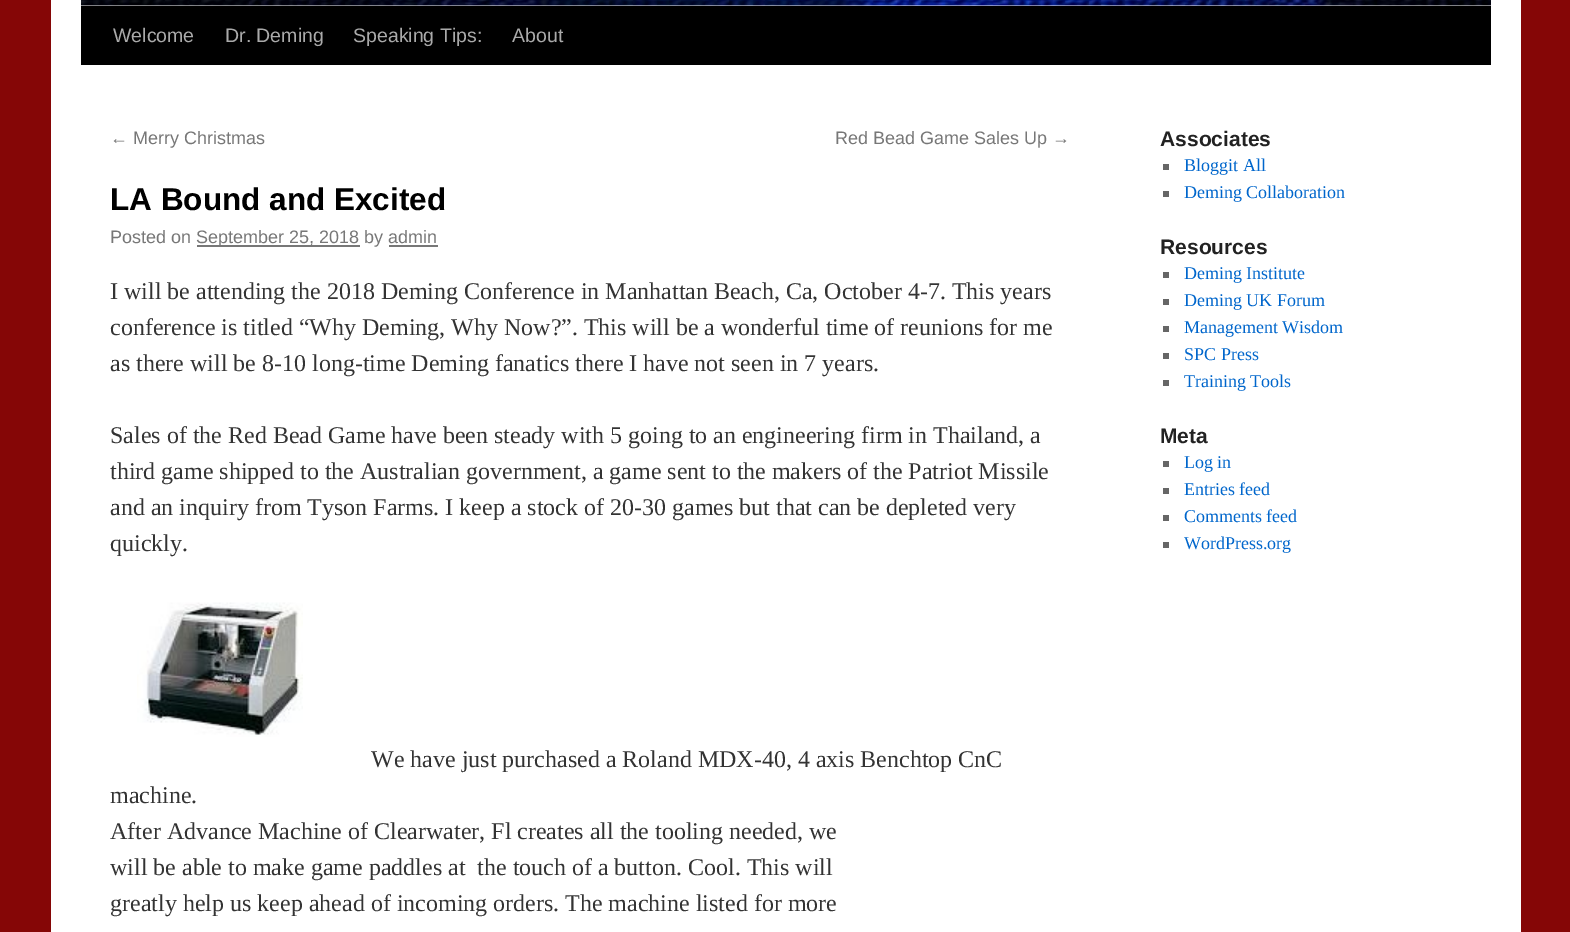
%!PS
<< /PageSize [1570 932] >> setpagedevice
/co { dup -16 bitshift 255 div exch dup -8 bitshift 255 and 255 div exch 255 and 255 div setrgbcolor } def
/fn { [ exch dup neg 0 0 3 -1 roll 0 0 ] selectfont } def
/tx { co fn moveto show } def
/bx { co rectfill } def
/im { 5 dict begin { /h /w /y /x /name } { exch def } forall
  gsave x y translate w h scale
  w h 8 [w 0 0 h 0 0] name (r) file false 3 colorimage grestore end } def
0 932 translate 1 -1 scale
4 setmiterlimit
0 0 1570 932 16#850606 bx
51 0 1470 932 16#FFFFFF bx
81 6 1410 59 16#000000 bx
(media/1.raw) 81 0 1410 6 im
197 245 163 2 16#777777 bx
389 245 49 2 16#777777 bx
(media/2.raw) 137 602 166 135 im
1163 164 6 6 16#666666 bx
1163 191 6 6 16#666666 bx
1163 272 6 6 16#666666 bx
1163 299 6 6 16#666666 bx
1163 326 6 6 16#666666 bx
1163 353 6 6 16#666666 bx
1163 380 6 6 16#666666 bx
1163 461 6 6 16#666666 bx
1163 488 6 6 16#666666 bx
1163 515 6 6 16#666666 bx
1163 542 6 6 16#666666 bx
(Welcome) 113 42 /LiberationSans-Regular 19.5 16#AAAAAA tx
(Dr. Deming) 225 42 /LiberationSans-Regular 19.5 16#AAAAAA tx
(Speaking Tips:) 353 42 /LiberationSans-Regular 19.5 16#AAAAAA tx
(About) 512 42 /LiberationSans-Regular 19.5 16#AAAAAA tx
(← Merry Christmas) 110 144 /LiberationSans-Regular 18 16#777777 tx
(Red Bead Game Sales Up →) 835 144 /LiberationSans-Regular 18 16#777777 tx
(LA Bound and Excited) 110 210 /LiberationSans-Bold 31.5 16#000000 tx
(Posted on) 110 243 /LiberationSans-Regular 18 16#777777 tx
(September 25, 2018 by admin) 196 243 /LiberationSans-Regular 18 16#777777 tx
(I will be attending the 2018 Deming Conference in Manhattan Beach, Ca, October 4-7. This years) 110 299 /LiberationSerif-Regular 24 16#333333 tx
(conference is titled “Why Deming, Why Now?”. This will be a wonderful time of reunions for me) 110 335 /LiberationSerif-Regular 24 16#333333 tx
(as there will be 8-10 long-time Deming fanatics there I have not seen in 7 years.) 110 371 /LiberationSerif-Regular 24 16#333333 tx
(Sales of the Red Bead Game have been steady with 5 going to an engineering firm in Thailand, a) 110 443 /LiberationSerif-Regular 24 16#333333 tx
(third game shipped to the Australian government, a game sent to the makers of the Patriot Missile) 110 479 /LiberationSerif-Regular 24 16#333333 tx
(and an inquiry from Tyson Farms. I keep a stock of 20-30 games but that can be depleted very) 110 515 /LiberationSerif-Regular 24 16#333333 tx
(quickly.) 110 551 /LiberationSerif-Regular 24 16#333333 tx
(We have just purchased a Roland MDX-40, 4 axis Benchtop CnC) 371 767 /LiberationSerif-Regular 24 16#333333 tx
(machine.) 110 803 /LiberationSerif-Regular 24 16#333333 tx
(After Advance Machine of Clearwater, Fl creates all the tooling needed, we) 110 839 /LiberationSerif-Regular 24 16#333333 tx
(will be able to make game paddles at  the touch of a button. Cool. This will) 110 875 /LiberationSerif-Regular 24 16#333333 tx
(greatly help us keep ahead of incoming orders. The machine listed for more) 110 911 /LiberationSerif-Regular 24 16#333333 tx
(Associates) 1160 146 /LiberationSans-Bold 21 16#222222 tx
(Bloggit All) 1184 171 /LiberationSerif-Regular 18 16#0066CC tx
(Deming Collaboration) 1184 198 /LiberationSerif-Regular 18 16#0066CC tx
(Resources) 1160 254 /LiberationSans-Bold 21 16#222222 tx
(Deming Institute) 1184 279 /LiberationSerif-Regular 18 16#0066CC tx
(Deming UK Forum) 1184 306 /LiberationSerif-Regular 18 16#0066CC tx
(Management Wisdom) 1184 333 /LiberationSerif-Regular 18 16#0066CC tx
(SPC Press) 1184 360 /LiberationSerif-Regular 18 16#0066CC tx
(Training Tools) 1184 387 /LiberationSerif-Regular 18 16#0066CC tx
(Meta) 1160 443 /LiberationSans-Bold 21 16#222222 tx
(Log in) 1184 468 /LiberationSerif-Regular 18 16#0066CC tx
(Entries feed) 1184 495 /LiberationSerif-Regular 18 16#0066CC tx
(Comments feed) 1184 522 /LiberationSerif-Regular 18 16#0066CC tx
(WordPress.org) 1184 549 /LiberationSerif-Regular 18 16#0066CC tx
showpage
